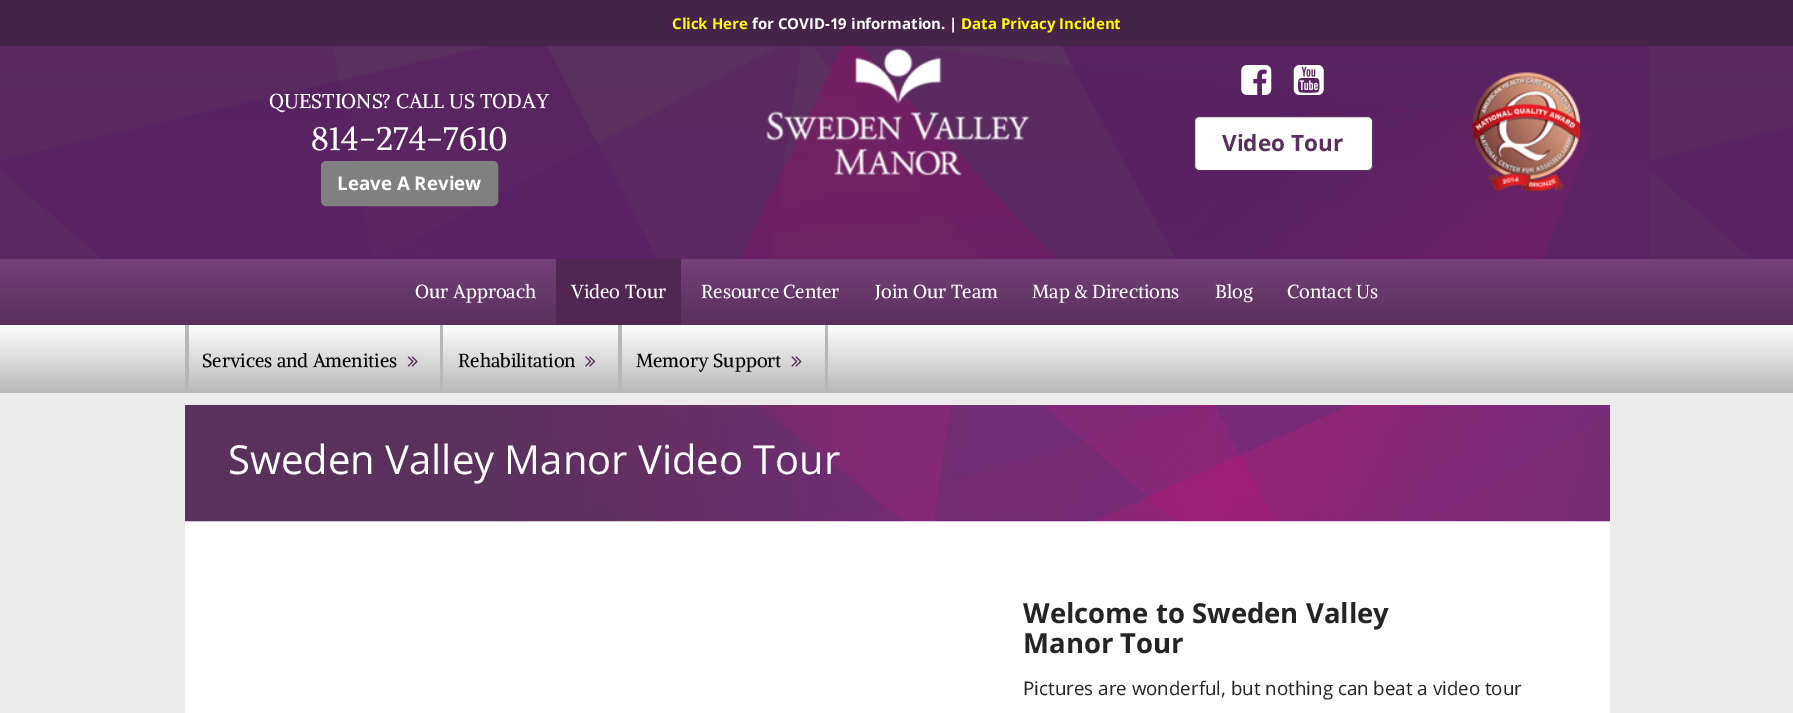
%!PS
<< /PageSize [1793 713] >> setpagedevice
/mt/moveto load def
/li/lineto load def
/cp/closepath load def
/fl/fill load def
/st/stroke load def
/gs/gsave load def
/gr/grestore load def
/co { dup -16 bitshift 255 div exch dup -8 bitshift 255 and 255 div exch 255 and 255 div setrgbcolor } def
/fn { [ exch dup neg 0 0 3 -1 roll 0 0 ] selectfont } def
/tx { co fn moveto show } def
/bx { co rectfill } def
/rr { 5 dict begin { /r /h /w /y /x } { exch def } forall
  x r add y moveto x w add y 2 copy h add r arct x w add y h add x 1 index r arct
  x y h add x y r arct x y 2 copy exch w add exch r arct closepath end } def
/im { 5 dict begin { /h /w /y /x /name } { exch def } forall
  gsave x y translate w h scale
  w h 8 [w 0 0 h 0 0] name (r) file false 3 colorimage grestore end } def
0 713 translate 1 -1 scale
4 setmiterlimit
0 0 1793 713 16#EBEBEB bx
0 0 1793 46 16#462349 bx
(media/1.raw) 0 46 1793 213 im
16#808080 co
321.5 161.5 176 44 4.5 rr gs fl gr
st
(media/2.raw) 766 48 263 128 im
(media/3.raw) 1241 65 31 30 im
(media/4.raw) 1293 65 31 30 im
16#FFFFFF co
1194.5 116.5 178 54 4.5 rr gs fl gr
16#59305D co
st
(media/5.raw) 1472 72 109 120 im
gs 0 259 mt 1793 259 li 1793 325 li 0 325 li cp clip newpath
<< /ShadingType 2 /ColorSpace /DeviceRGB /Coords [897 259 897 325] /Extend [true true] /Function << /FunctionType 2 /Domain [0 1] /C0 [.459 .255 .475] /C1 [.349 .188 .365] /N 1 >> >> shfill gr
556 259 125 66 16#4F2752 bx
gs 0 325 mt 1793 325 li 1793 393 li 0 393 li cp clip newpath
<< /ShadingType 2 /ColorSpace /DeviceRGB /Coords [897 325 897 393] /Extend [true true] /Function << /FunctionType 2 /Domain [0 1] /C0 [.996 .996 .996] /C1 [.722 .722 .722] /N 1 >> >> shfill gr
185 325 4 65 16#B7B7B7 bx
(media/6.raw) 407 356 11 11 im
440 325 3 65 16#B7B7B7 bx
(media/7.raw) 585 356 11 11 im
618 325 4 65 16#B7B7B7 bx
825 325 3 68 16#B7B7B7 bx
(media/8.raw) 791 356 11 11 im
185 521 1425 192 16#FFFFFF bx
(media/9.raw) 185 405 1425 117 im
(Click Here) 672 29 /OpenSans-Bold 15 16#FFFF00 tx
(for COVID-19 information. |) 752 29 /OpenSans-Bold 15 16#FFFFFF tx
(Data Privacy Incident) 961 29 /OpenSans-Bold 15 16#FFFF00 tx
(QUESTIONS? CALL US TODAY) 269 108 /Alike-Regular 20 16#FFFFFF tx
(814-274-7610) 311 150 /Alike-Regular 32.5 16#FFFFFF tx
(Leave A Review) 337 190 /OpenSans-Bold 18.75 16#FFFFFF tx
(Video Tour) 1222 151 /OpenSans-Bold 22.5 16#59305D tx
(Our Approach) 415 298 /Alike-Regular 18.75 16#FFFFFF tx
(Video Tour) 571 298 /Alike-Regular 18.75 16#FFFFFF tx
(Resource Center) 701 298 /Alike-Regular 18.75 16#FFFFFF tx
(Join Our Team) 875 298 /Alike-Regular 18.75 16#FFFFFF tx
(Map & Directions) 1032 298 /Alike-Regular 18.75 16#FFFFFF tx
(Blog) 1215 298 /Alike-Regular 18.75 16#FFFFFF tx
(Contact Us) 1287 298 /Alike-Regular 18.75 16#FFFFFF tx
(Services and Amenities) 202 367 /Alike-Regular 18.75 16#000000 tx
(Rehabilitation) 458 367 /Alike-Regular 18.75 16#000000 tx
(Memory Support) 636 367 /Alike-Regular 18.75 16#000000 tx
(Sweden Valley Manor Video Tour) 228 474 /OpenSans-Regular 40 16#FFFFFF tx
(Welcome to Sweden Valley) 1023 623 /OpenSans-Bold 27.5 16#242424 tx
(Manor Tour) 1023 653 /OpenSans-Bold 27.5 16#242424 tx
(Pictures are wonderful, but nothing can beat a video tour) 1023 695 /OpenSans-Regular 18.75 16#242424 tx
showpage
